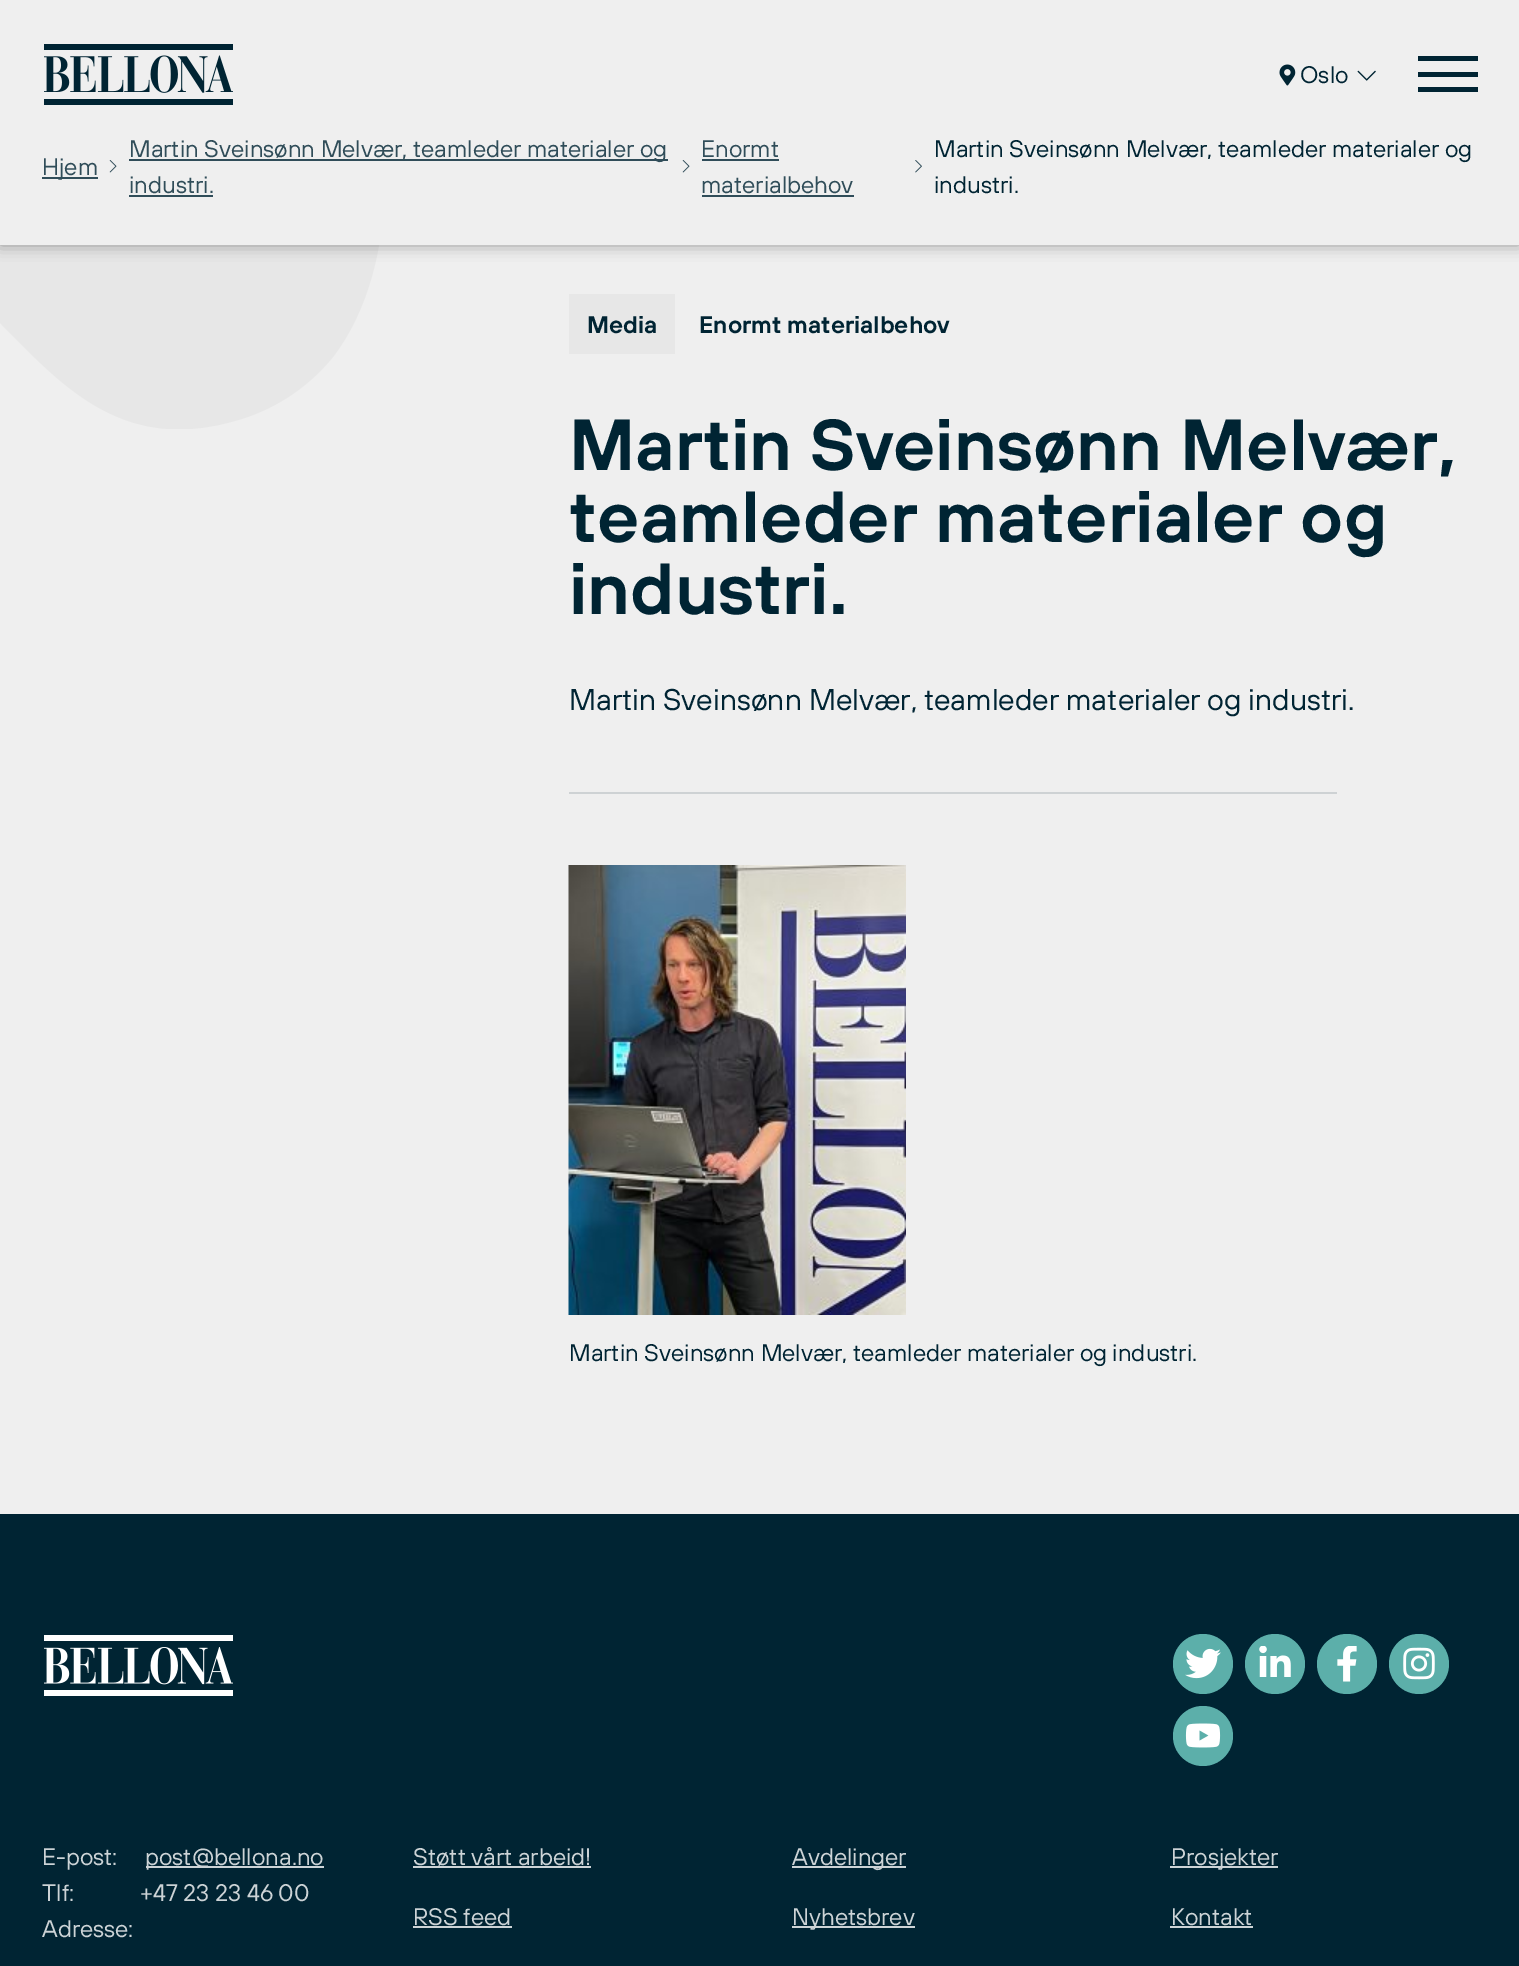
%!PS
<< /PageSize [1519 1966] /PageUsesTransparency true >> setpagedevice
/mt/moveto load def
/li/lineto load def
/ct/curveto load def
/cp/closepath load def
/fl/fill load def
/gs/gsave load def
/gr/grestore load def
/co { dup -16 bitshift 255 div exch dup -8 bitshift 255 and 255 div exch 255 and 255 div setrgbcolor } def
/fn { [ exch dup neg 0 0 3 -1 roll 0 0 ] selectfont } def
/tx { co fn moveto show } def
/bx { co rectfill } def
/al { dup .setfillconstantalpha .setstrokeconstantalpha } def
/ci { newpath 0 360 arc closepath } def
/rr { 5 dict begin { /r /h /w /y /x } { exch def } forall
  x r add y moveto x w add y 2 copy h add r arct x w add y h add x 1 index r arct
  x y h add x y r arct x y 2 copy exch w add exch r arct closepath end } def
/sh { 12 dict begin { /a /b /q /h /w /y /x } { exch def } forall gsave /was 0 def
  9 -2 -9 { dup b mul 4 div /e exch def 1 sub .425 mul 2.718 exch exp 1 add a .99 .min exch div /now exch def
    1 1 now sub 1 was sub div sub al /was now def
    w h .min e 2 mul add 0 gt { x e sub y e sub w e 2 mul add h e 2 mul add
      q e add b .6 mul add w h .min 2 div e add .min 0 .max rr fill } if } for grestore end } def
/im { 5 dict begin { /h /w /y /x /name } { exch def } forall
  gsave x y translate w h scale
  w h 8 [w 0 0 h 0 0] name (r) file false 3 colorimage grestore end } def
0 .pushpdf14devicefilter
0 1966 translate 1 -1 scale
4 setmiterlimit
0 0 1519 1966 16#EFEFEF bx
gs
0 6 384 423 rectclip
16#E7E7E7 co
321 6 mt 403 90 403 266 333 357 ct 307 389 271 412 231 422 ct 195 432 156 433 120 418 ct 72 399 36 359 0 323 ct 0 6 li cp eofill
gr
16#000000 co
0 0 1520 245 0 7.5 .35 sh
0 0 1519 245 16#EFEFEF bx
(media/1.raw) 44 44 189 61 im
(media/2.raw) 1279 64 17 22 im
(media/3.raw) 1357 70 19 11 im
1418 56 60 5 16#002433 bx
1418 72 60 5 16#002433 bx
1418 87 60 5 16#002433 bx
42 177 56 2 16#304D59 bx
(media/4.raw) 109 160 8 13 im
129 159 539 2 16#304D59 bx
129 195 84 2 16#304D59 bx
(media/4.raw) 682 160 8 13 im
702 159 77 2 16#304D59 bx
702 195 152 2 16#304D59 bx
(media/5.raw) 915 160 7 13 im
569 294 106 60 16#E7E7E7 bx
569 792 768 2 16#CED2D4 bx
(media/6.raw) 568 865 338 450 im
0 1514 1519 452 16#002433 bx
(media/7.raw) 44 1635 189 61 im
16#5CAFAA co
1203 1664 30 ci fl
(media/8.raw) 1185 1648 36 31 im
1275 1664 30 ci fl
(media/9.raw) 1259 1646 32 31 im
1347 1664 30 ci fl
(media/10.raw) 1337 1646 20 36 im
1419 1664 30 ci fl
(media/11.raw) 1403 1647 32 33 im
1203 1736 30 ci fl
(media/12.raw) 1185 1723 36 25 im
146 1866 178 2 16#CCD3D6 bx
413 1866 178 2 16#CCD3D6 bx
792 1866 114 2 16#CCD3D6 bx
1170 1866 108 2 16#CCD3D6 bx
413 1926 99 2 16#CCD3D6 bx
792 1926 123 2 16#CCD3D6 bx
1170 1926 83 2 16#CCD3D6 bx
(Oslo) 1300 83 /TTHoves-Regular 24 16#002433 tx
(Hjem) 42 175 /TTHoves-Regular 24 16#304D59 tx
(Martin Sveinsønn Melvær, teamleder materialer og) 129 157 /TTHoves-Regular 24 16#304D59 tx
(industri.) 129 193 /TTHoves-Regular 24 16#304D59 tx
(Enormt) 701 157 /TTHoves-Regular 24 16#304D59 tx
(materialbehov) 701 193 /TTHoves-Regular 24 16#304D59 tx
(Martin Sveinsønn Melvær, teamleder materialer og) 934 157 /TTHoves-Regular 24 16#002433 tx
(industri.) 934 193 /TTHoves-Regular 24 16#002433 tx
(Media) 587 333 /TTHoves-SemiBold 24 16#002433 tx
(Enormt materialbehov) 699 333 /TTHoves-SemiBold 24 16#002433 tx
(Martin Sveinsønn Melvær,) 569 470 /TTHoves-SemiBold 72 16#002433 tx
(teamleder materialer og) 569 542 /TTHoves-SemiBold 72 16#002433 tx
(industri.) 569 614 /TTHoves-SemiBold 72 16#002433 tx
(Martin Sveinsønn Melvær, teamleder materialer og industri.) 569 710 /TTHoves-Regular 30 16#002433 tx
(Martin Sveinsønn Melvær, teamleder materialer og industri.) 569 1361 /TTHoves-Regular 24 16#002433 tx
(E-post:) 42 1865 /TTHoves-Regular 24 16#CCD3D6 tx
(post@bellona.no) 145 1865 /TTHoves-Regular 24 16#CCD3D6 tx
(Tlf:            +47 23 23 46 00) 42 1901 /TTHoves-Regular 24 16#CCD3D6 tx
(Adresse:) 42 1937 /TTHoves-Regular 24 16#CCD3D6 tx
(Støtt vårt arbeid!) 413 1865 /TTHoves-Regular 24 16#CCD3D6 tx
(Avdelinger) 792 1865 /TTHoves-Regular 24 16#CCD3D6 tx
(Prosjekter) 1171 1865 /TTHoves-Regular 24 16#CCD3D6 tx
(RSS feed) 413 1925 /TTHoves-Regular 24 16#CCD3D6 tx
(Nyhetsbrev) 792 1925 /TTHoves-Regular 24 16#CCD3D6 tx
(Kontakt) 1171 1925 /TTHoves-Regular 24 16#CCD3D6 tx
.poppdf14devicefilter showpage
